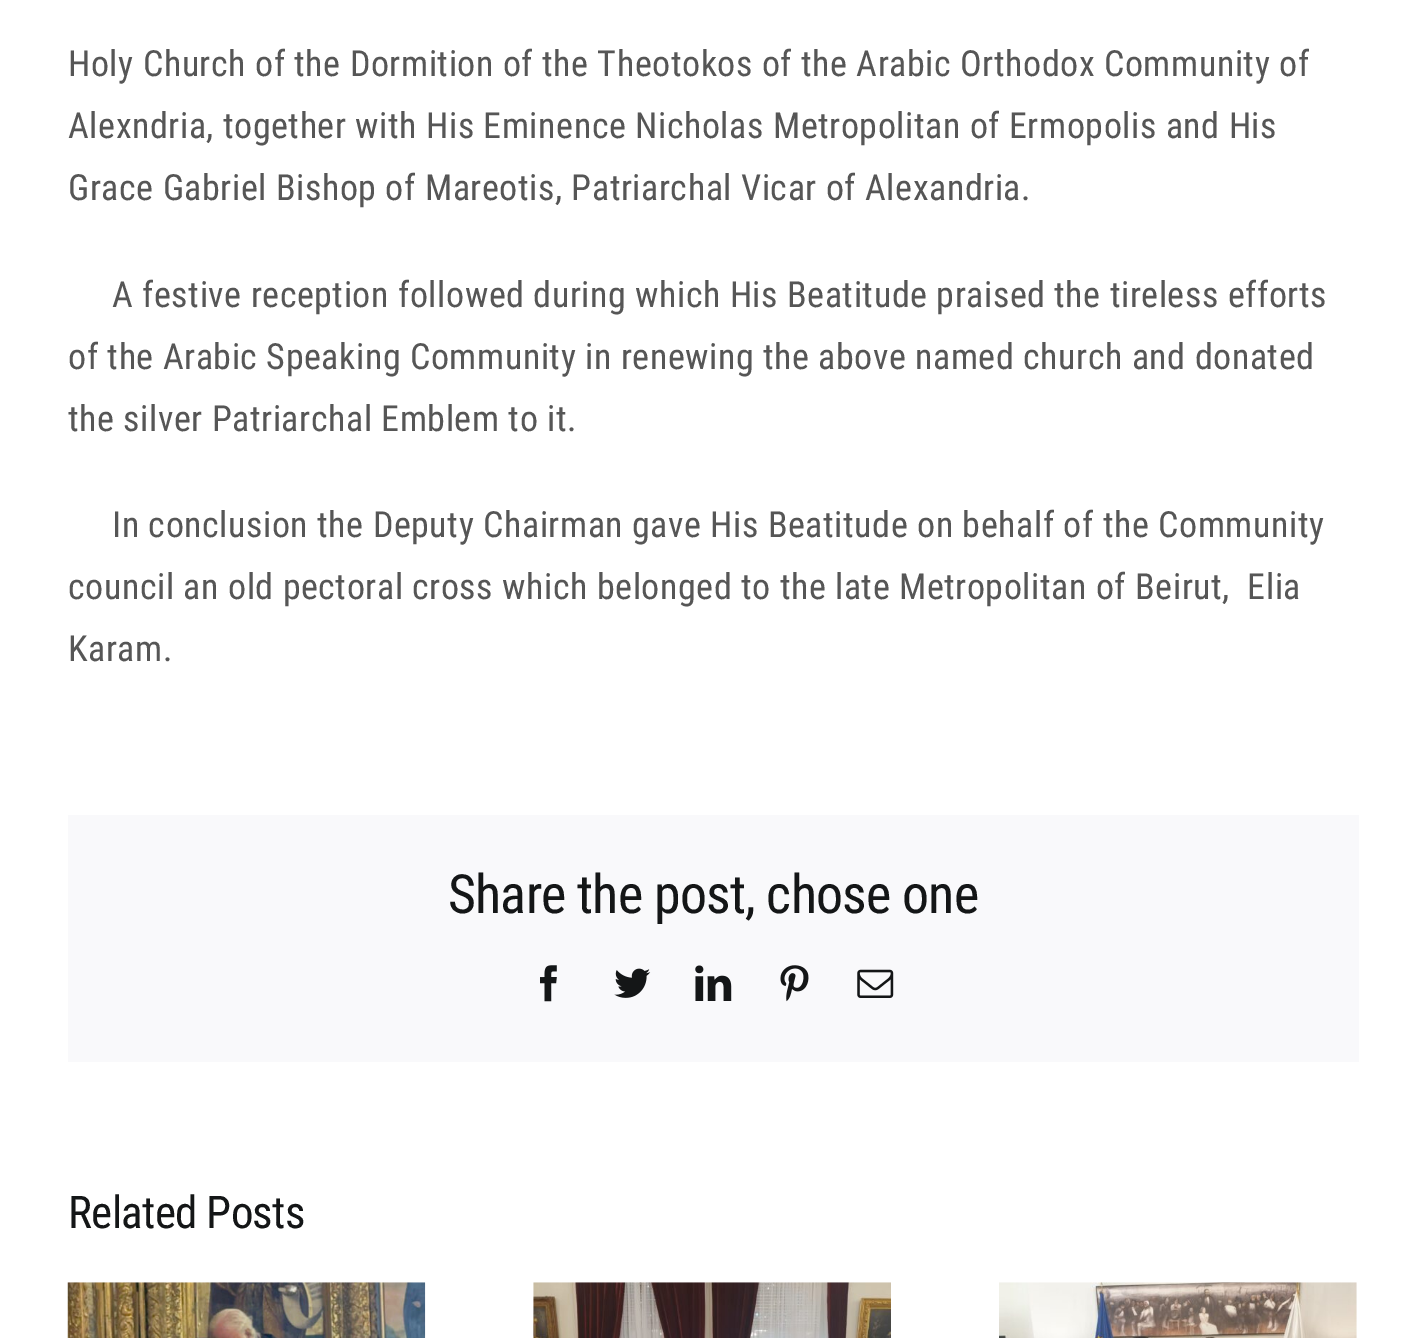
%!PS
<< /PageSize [1425 1338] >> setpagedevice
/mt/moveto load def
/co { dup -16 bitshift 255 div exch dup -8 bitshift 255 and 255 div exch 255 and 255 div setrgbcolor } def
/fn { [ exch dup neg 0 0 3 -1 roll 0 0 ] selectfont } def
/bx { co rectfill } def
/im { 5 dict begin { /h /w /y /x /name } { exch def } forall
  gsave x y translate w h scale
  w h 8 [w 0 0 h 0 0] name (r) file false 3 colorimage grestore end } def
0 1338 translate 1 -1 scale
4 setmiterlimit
0 0 1425 1338 16#FFFFFF bx
68 815 1291 247 16#F9F9FB bx
(media/1.raw) 540 965 17 37 im
(media/2.raw) 614 968 37 30 im
(media/3.raw) 695 965 37 36 im
(media/4.raw) 780 965 29 37 im
(media/5.raw) 857 969 37 29 im
(media/6.raw) 67 1282 359 56 im
(media/7.raw) 533 1282 358 56 im
(media/8.raw) 999 1282 358 56 im
/RobotoCondensed-Regular 36 fn
16#565656 co
68 76 mt .55 0 (Holy Church of the Dormition of the Theotokos of the Arabic Orthodox Community of) ashow
68 138 mt .55 0 (Alexndria, together with His Eminence Nicholas Metropolitan of Ermopolis and His) ashow
68 200 mt .55 0 (Grace Gabriel Bishop of Mareotis, Patriarchal Vicar of Alexandria.) ashow
112 307 mt .55 0 (A festive reception followed during which His Beatitude praised the tireless efforts) ashow
68 369 mt .55 0 (of the Arabic Speaking Community in renewing the above named church and donated) ashow
68 431 mt .55 0 (the silver Patriarchal Emblem to it.) ashow
112 537 mt .55 0 (In conclusion the Deputy Chairman gave His Beatitude on behalf of the Community) ashow
68 599 mt .55 0 (council an old pectoral cross which belonged to the late Metropolitan of Beirut,  Elia) ashow
68 661 mt .55 0 (Karam.) ashow
/RobotoCondensed-Regular 54 fn
16#141617 co
448 913 mt -.8 0 (Share the post, chose one) ashow
/RobotoCondensed-Regular 45 fn
68 1228 mt -.7 0 (Related Posts) ashow
showpage
